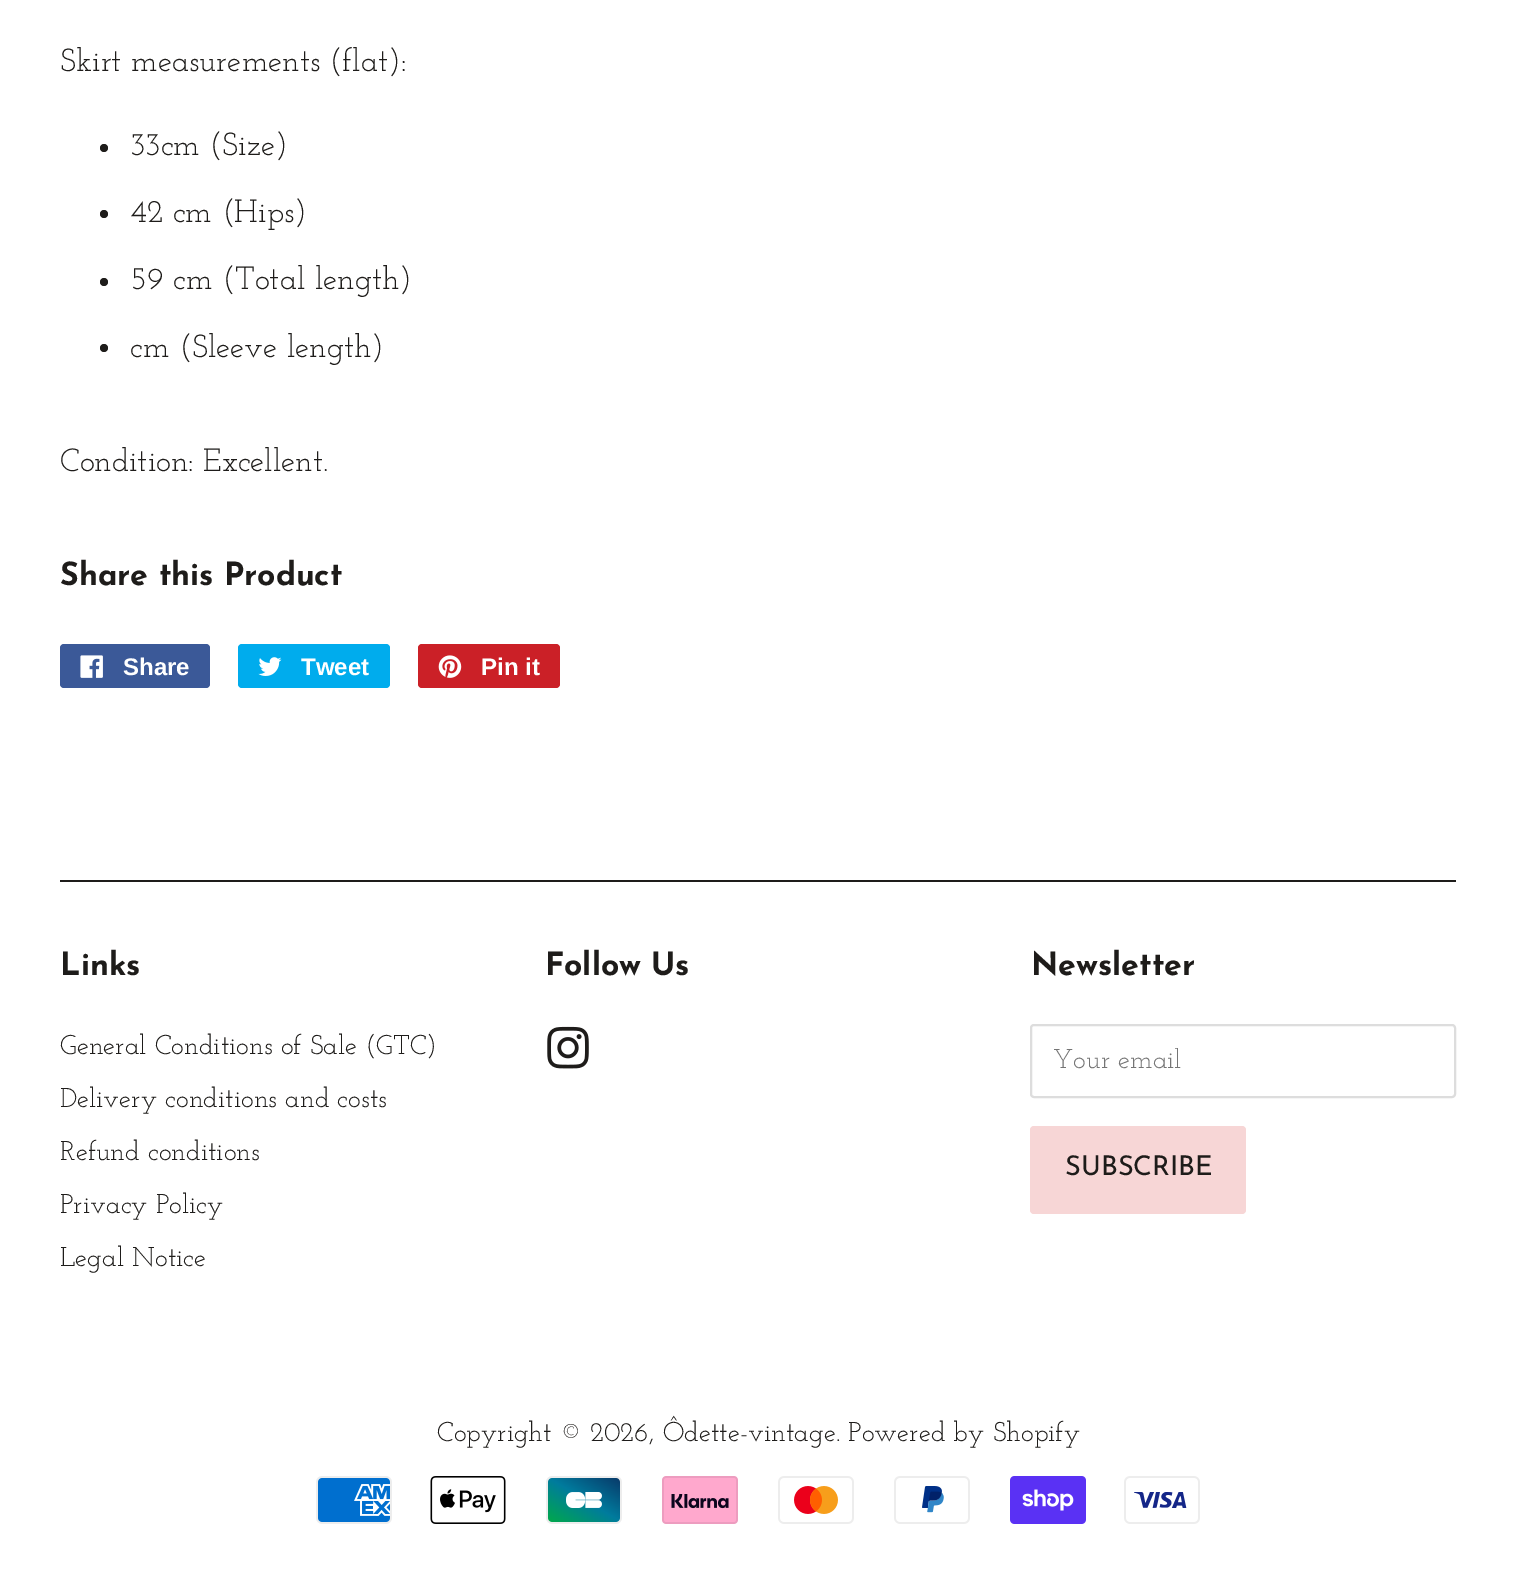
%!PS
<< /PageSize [1515 1595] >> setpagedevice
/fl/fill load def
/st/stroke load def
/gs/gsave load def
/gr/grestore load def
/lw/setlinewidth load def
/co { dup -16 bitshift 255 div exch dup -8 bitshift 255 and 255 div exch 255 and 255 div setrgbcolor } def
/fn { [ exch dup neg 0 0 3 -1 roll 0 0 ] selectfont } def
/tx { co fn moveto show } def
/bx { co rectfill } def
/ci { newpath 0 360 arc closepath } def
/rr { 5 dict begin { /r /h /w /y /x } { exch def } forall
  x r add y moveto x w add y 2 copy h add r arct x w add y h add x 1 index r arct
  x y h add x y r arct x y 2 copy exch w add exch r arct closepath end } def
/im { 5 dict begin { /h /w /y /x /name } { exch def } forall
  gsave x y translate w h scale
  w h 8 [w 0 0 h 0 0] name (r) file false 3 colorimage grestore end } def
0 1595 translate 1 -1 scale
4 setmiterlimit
0 0 1515 1595 16#FFFFFF bx
16#1E1C1A co
104 148 4 ci fl
104 214 4 ci fl
104 282 4 ci fl
104 348 4 ci fl
16#3B5998 co
60 644 150 44 4 rr fl
(media/1.raw) 80 655 23 23 im
16#00ACED co
238 644 152 44 4 rr fl
(media/2.raw) 258 657 24 19 im
16#CB2027 co
418 644 142 44 4 rr fl
(media/3.raw) 438 655 24 23 im
60 880 1396 2 16#1E1C1A bx
(media/4.raw) 547 1026 42 43 im
16#DDDDDD co
2 lw
1031 1025 424 72 3 rr st
16#F7D6D6 co
1030 1126 216 88 4 rr fl
(media/5.raw) 316 1476 76 48 im
(media/6.raw) 430 1476 76 48 im
(media/7.raw) 546 1476 76 48 im
(media/8.raw) 662 1476 76 48 im
(media/9.raw) 778 1476 76 48 im
(media/10.raw) 894 1476 76 48 im
(media/11.raw) 1010 1476 76 48 im
(media/12.raw) 1124 1476 76 48 im
(Skirt measurements \(flat\):) 60 71 /JosefinSlab-Regular 32 16#1E1C1A tx
(33cm \(Size\)) 130 155 /JosefinSlab-Regular 32 16#1E1C1A tx
(42 cm \(Hips\)) 130 222 /JosefinSlab-Regular 32 16#1E1C1A tx
(59 cm \(Total length\)) 130 289 /JosefinSlab-Regular 32 16#1E1C1A tx
(cm \(Sleeve length\)) 130 357 /JosefinSlab-Regular 32 16#1E1C1A tx
(Condition: Excellent.) 60 471 /JosefinSlab-Regular 32 16#1E1C1A tx
(Share this Product) 60 585 /JosefinSans-Bold 32 16#1E1C1A tx
(Share) 123 675 /LiberationSans-Bold 24 16#FFFFFF tx
(Tweet) 301 675 /LiberationSans-Bold 24 16#FFFFFF tx
(Pin it) 481 675 /LiberationSans-Bold 24 16#FFFFFF tx
(Links) 60 975 /JosefinSans-Bold 32 16#1E1C1A tx
(General Conditions of Sale \(GTC\)) 60 1054 /JosefinSlab-Regular 27.2 16#1E1C1A tx
(Delivery conditions and costs) 60 1107 /JosefinSlab-Regular 27.2 16#1E1C1A tx
(Refund conditions) 60 1160 /JosefinSlab-Regular 27.2 16#1E1C1A tx
(Privacy Policy) 60 1213 /JosefinSlab-Regular 27.2 16#1E1C1A tx
(Legal Notice) 60 1266 /JosefinSlab-Regular 27.2 16#1E1C1A tx
(Follow Us) 545 975 /JosefinSans-Bold 32 16#1E1C1A tx
(Newsletter) 1031 975 /JosefinSans-Bold 32 16#1E1C1A tx
gs
1052 1048 382 26 rectclip
(Your email) 1053 1068 /JosefinSlab-Regular 27.2 16#757575 tx
gr
(SUBSCRIBE) 1065 1175 /JosefinSans-Regular 27.2 16#1E1C1A tx
(Copyright © 2026, Ôdette-vintage. Powered by Shopify) 437 1441 /JosefinSlab-Regular 27.2 16#1E1C1A tx
showpage
